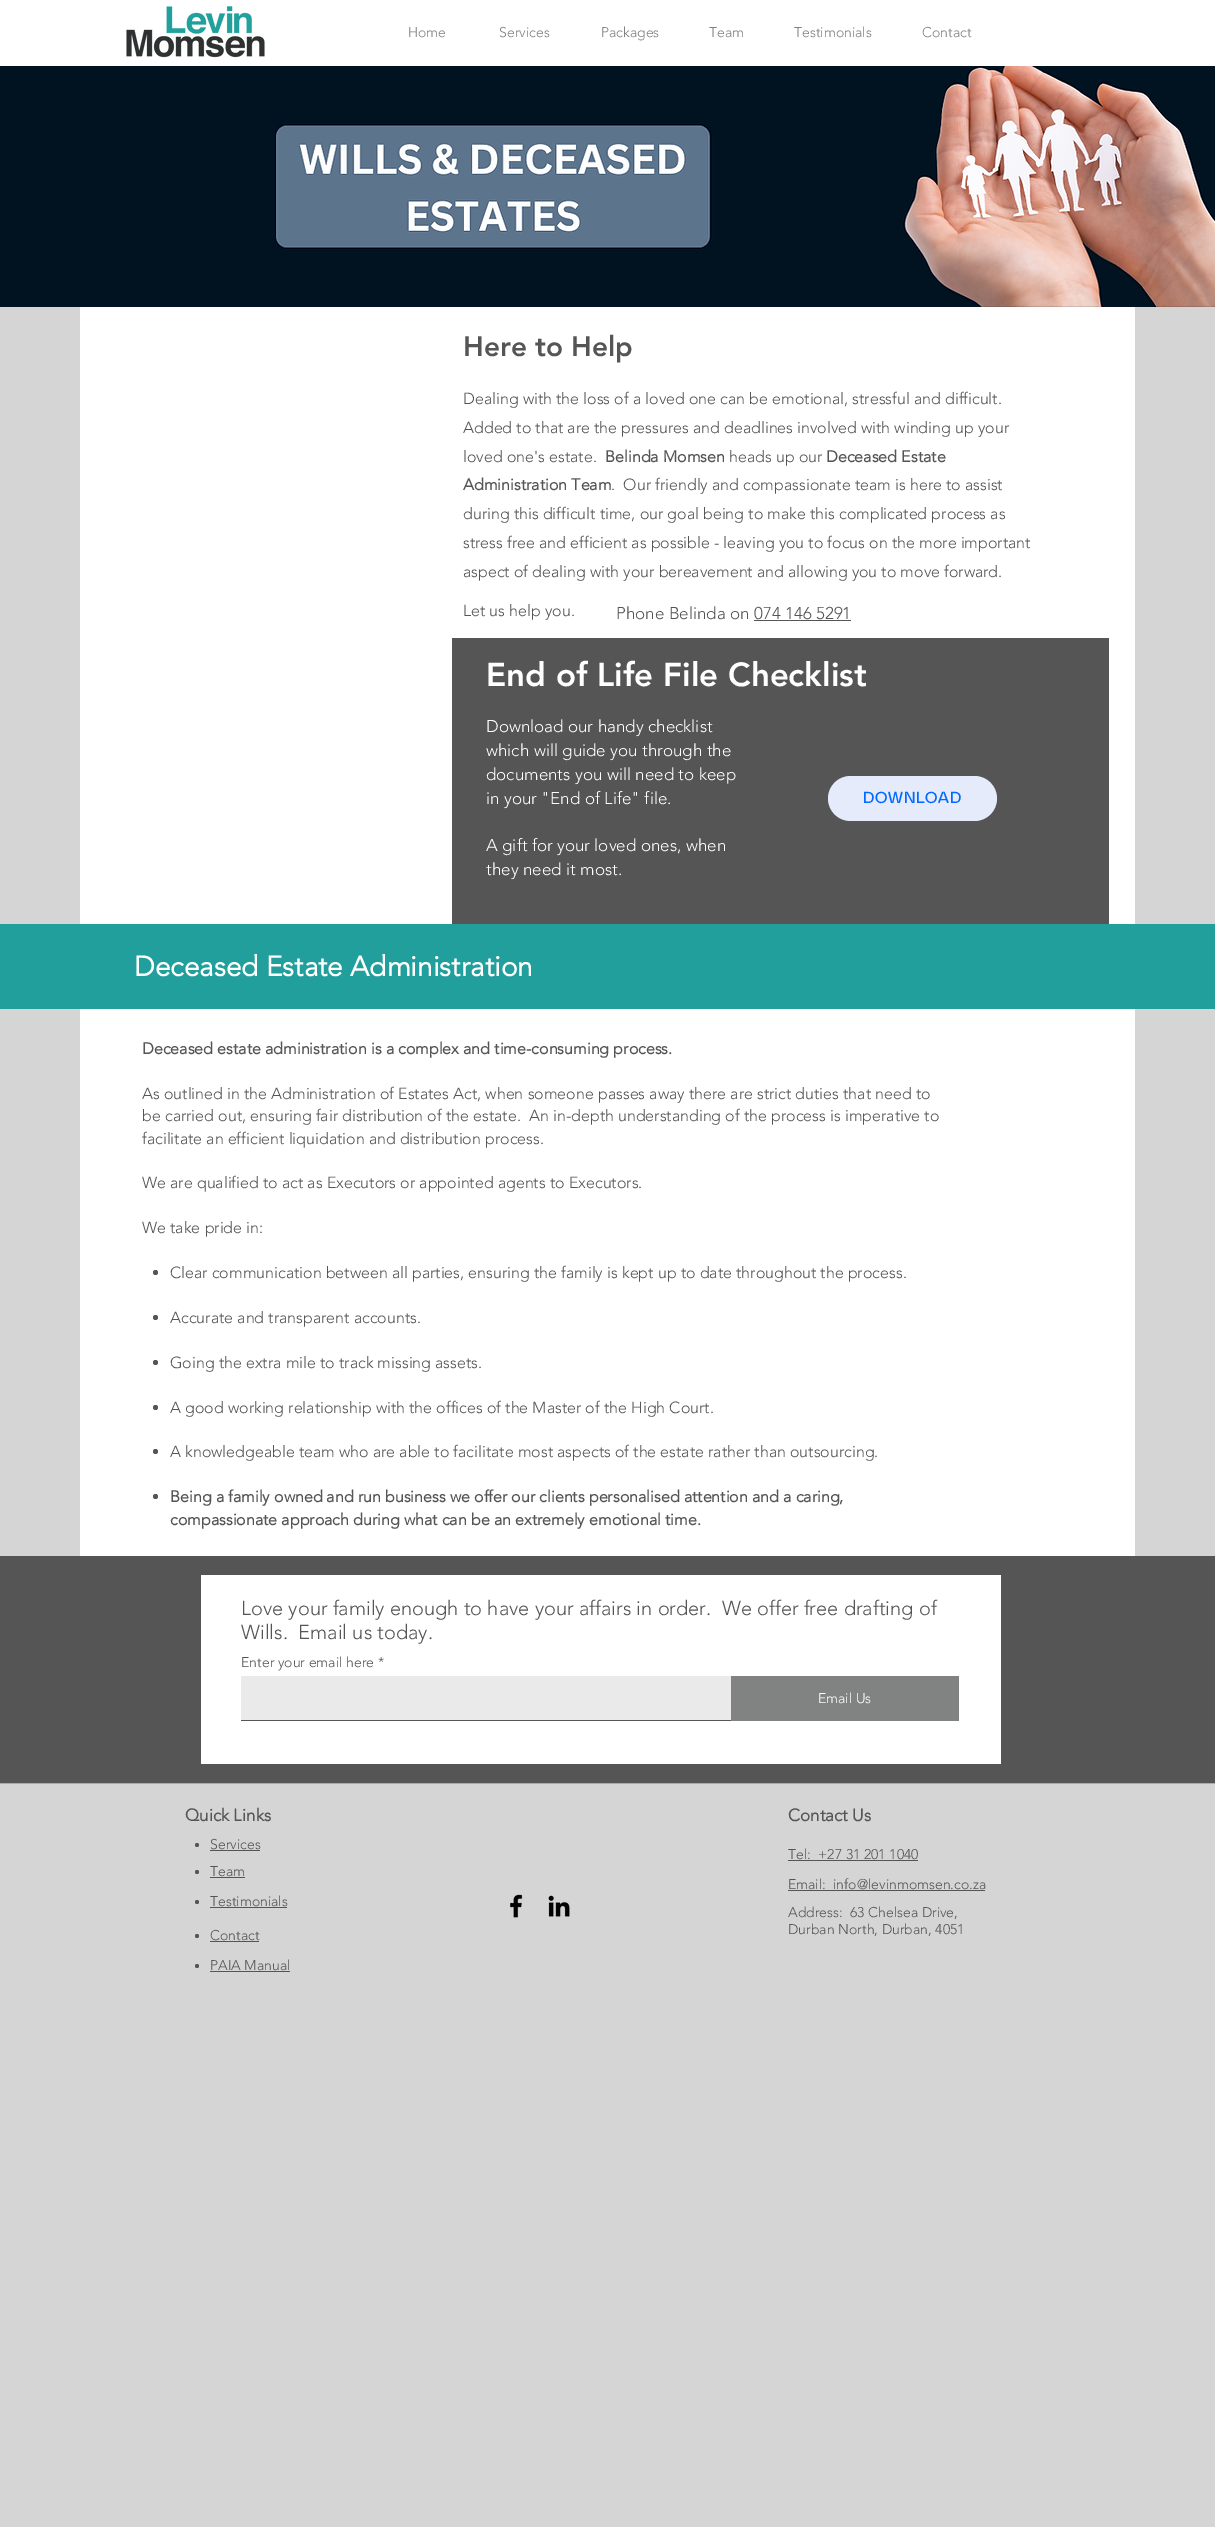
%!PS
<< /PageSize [1215 2527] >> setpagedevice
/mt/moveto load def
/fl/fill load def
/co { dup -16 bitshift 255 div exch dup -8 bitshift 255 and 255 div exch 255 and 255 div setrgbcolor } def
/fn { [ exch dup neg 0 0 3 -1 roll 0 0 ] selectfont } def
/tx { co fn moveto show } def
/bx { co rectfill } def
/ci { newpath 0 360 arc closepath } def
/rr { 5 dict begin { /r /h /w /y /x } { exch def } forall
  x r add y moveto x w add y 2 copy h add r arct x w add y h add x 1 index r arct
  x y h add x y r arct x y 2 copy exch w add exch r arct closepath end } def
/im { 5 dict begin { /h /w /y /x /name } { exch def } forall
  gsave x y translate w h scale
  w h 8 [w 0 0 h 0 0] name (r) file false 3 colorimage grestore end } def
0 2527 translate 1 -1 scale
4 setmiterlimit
0 0 1215 2527 16#D5D5D5 bx
0 0 1215 66 16#FFFFFF bx
(media/1.raw) 126 6 139 52 im
(media/2.raw) 0 66 1215 241 im
80 307 1055 617 16#FFFFFF bx
754 620 97 1 16#555555 bx
452 638 657 286 16#555555 bx
16#E5EBFA co
828 776 169 45 22.5 rr fl
0 924 1215 85 16#219F9C bx
80 1009 1055 547 16#FFFFFF bx
16#555555 co
155.5 1272.5 2.5 ci fl
155.5 1317.5 2.5 ci fl
155.5 1362.5 2.5 ci fl
155.5 1407.5 2.5 ci fl
155.5 1451.5 2.5 ci fl
155.5 1496.5 2.5 ci fl
0 1556 1215 227 16#555555 bx
201 1575 800 189 16#FFFFFF bx
241 1676 490 44 16#EAEAEA bx
241 1720 491 1 16#555555 bx
731 1676 228 45 16#818383 bx
0 1783 1215 1 16#AAAAAA bx
16#555555 co
197 1845 2 ci fl
210 1850 50 1 16#555555 bx
788 1860 130 1 16#555555 bx
197 1872 2 ci fl
210 1877 35 1 16#555555 bx
788 1890 197 1 16#555555 bx
197 1902 2 ci fl
210 1907 77 1 16#555555 bx
(media/3.raw) 510 1894 13 24 im
(media/4.raw) 548 1895 22 22 im
197 1936 2 ci fl
210 1941 49 1 16#555555 bx
197 1966 2 ci fl
210 1971 80 1 16#555555 bx
(Home) 408 37 /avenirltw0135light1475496-Light 14 16#808080 tx
(Services) 499 37 /avenirltw0135light1475496-Light 14 16#808080 tx
(Packages) 601 37 /avenirltw0135light1475496-Light 14 16#808080 tx
(Team) 709 37 /avenirltw0135light1475496-Light 14 16#808080 tx
(Testimonials) 794 37 /avenirltw0135light1475496-Light 14 16#808080 tx
(Contact) 922 37 /avenirltw0135light1475496-Light 14 16#808080 tx
(Here to Help) 463 356 /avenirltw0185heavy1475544-Black 28 16#555555 tx
(Dealing with the loss of a loved one can be emotional, stressful and difficult.) 463 404 /avenirltw0135light1475496-Light 16 16#555555 tx
(Added to that are the pressures and deadlines involved with winding up your) 463 433 /avenirltw0135light1475496-Light 16 16#555555 tx
(loved one's estate.) 463 462 /avenirltw0135light1475496-Light 16 16#555555 tx
(Belinda Momsen) 605 462 /avenirltw0135light1475496-Bold 16 16#555555 tx
(heads up our) 729 462 /avenirltw0135light1475496-Light 16 16#555555 tx
(Deceased Estate) 826 462 /avenirltw0135light1475496-Bold 16 16#555555 tx
(Administration Team) 463 490 /avenirltw0135light1475496-Bold 16 16#555555 tx
(.  Our friendly and compassionate team is here to assist) 611 490 /avenirltw0135light1475496-Light 16 16#555555 tx
(during this difficult time, our goal being to make this complicated process as) 463 519 /avenirltw0135light1475496-Light 16 16#555555 tx
(stress free and efficient as possible - leaving you to focus on the more important) 463 548 /avenirltw0135light1475496-Light 16 16#555555 tx
(aspect of dealing with your bereavement and allowing you to move forward.) 463 577 /avenirltw0135light1475496-Light 16 16#555555 tx
(Let us help you.) 463 616 /avenirltw0135light1475496-Light 16 16#555555 tx
(Phone Belinda on 074 146 5291) 616 619 /avenirltw0135light1475496-Light 17 16#555555 tx
(End of Life File Checklist) 486 686 /avenirltw0185heavy1475544-Black 33 16#FFFFFF tx
(Download our handy checklist) 486 732 /avenirltw0135light1475496-Light 17 16#FFFFFF tx
(which will guide you through the) 486 756 /avenirltw0135light1475496-Light 17 16#FFFFFF tx
(documents you will need to keep) 486 780 /avenirltw0135light1475496-Light 17 16#FFFFFF tx
(in your "End of Life" file.) 486 804 /avenirltw0135light1475496-Light 17 16#FFFFFF tx
(A gift for your loved ones, when) 486 851 /avenirltw0135light1475496-Light 17 16#FFFFFF tx
(they need it most.) 486 875 /avenirltw0135light1475496-Light 17 16#FFFFFF tx
/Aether-Regular 16 fn
16#0069FF co
863 803 mt .75 0 (DOWNLOAD) ashow
(Deceased Estate Administration) 134 976 /avenirltw0135light1475496-Bold 28 16#FFFFFF tx
(Deceased estate administration is a complex and time-consuming process.) 142 1054 /avenirltw0135light1475496-Bold 16 16#555555 tx
(As outlined in the Administration of Estates Act, when someone passes away there are strict duties that need to) 142 1099 /avenirltw0135light1475496-Light 16 16#555555 tx
(be carried out, ensuring fair distribution of the estate.  An in-depth understanding of the process is imperative to) 142 1121 /avenirltw0135light1475496-Light 16 16#555555 tx
(facilitate an efficient liquidation and distribution process.) 142 1144 /avenirltw0135light1475496-Light 16 16#555555 tx
(We are qualified to act as Executors or appointed agents to Executors.) 142 1188 /avenirltw0135light1475496-Light 16 16#555555 tx
(We take pride in:) 142 1233 /avenirltw0135light1475496-Light 16 16#555555 tx
(Clear communication between all parties, ensuring the family is kept up to date throughout the process.) 170 1278 /avenirltw0135light1475496-Light 16 16#555555 tx
(Accurate and transparent accounts.) 170 1323 /avenirltw0135light1475496-Light 16 16#555555 tx
(Going the extra mile to track missing assets.) 170 1368 /avenirltw0135light1475496-Light 16 16#555555 tx
(A good working relationship with the offices of the Master of the High Court.) 170 1413 /avenirltw0135light1475496-Light 16 16#555555 tx
(A knowledgeable team who are able to facilitate most aspects of the estate rather than outsourcing.) 170 1457 /avenirltw0135light1475496-Light 16 16#555555 tx
(Being a family owned and run business we offer our clients personalised attention and a caring,) 170 1502 /avenirltw0135light1475496-Bold 16 16#555555 tx
(compassionate approach during what can be an extremely emotional time.) 170 1525 /avenirltw0135light1475496-Bold 16 16#555555 tx
(Love your family enough to have your affairs in order.  We offer free drafting of) 241 1615 /avenirltw0135light1475496-Light 20 16#555555 tx
(Wills.  Email us today.) 241 1639 /avenirltw0135light1475496-Light 20 16#555555 tx
(Enter your email here *) 241 1667 /avenirltw0135light1475496-Light 14 16#555555 tx
(Email Us) 818 1703 /avenirltw0135light1475496-Light 14 16#FFFFFF tx
(Quick Links) 185 1821 /avenirltw0135light1475496-Bold 17 16#555555 tx
(Contact Us) 788 1821 /avenirltw0135light1475496-Bold 17 16#555555 tx
(Services) 210 1849 /avenirltw0135light1475496-Light 14 16#555555 tx
(Tel:  +27 31 201 1040) 788 1859 /avenirltw0135light1475496-Light 14 16#555555 tx
(Team) 210 1876 /avenirltw0135light1475496-Light 14 16#555555 tx
(Email:  info@levinmomsen.co.za) 788 1889 /avenirltw0135light1475496-Light 14 16#555555 tx
(Testimonials) 210 1906 /avenirltw0135light1475496-Light 14 16#555555 tx
(Contact) 210 1940 /avenirltw0135light1475496-Light 14 16#555555 tx
(Address:  63 Chelsea Drive,) 788 1917 /avenirltw0135light1475496-Light 14 16#555555 tx
(Durban North, Durban, 4051) 788 1934 /avenirltw0135light1475496-Light 14 16#555555 tx
(PAIA Manual) 210 1970 /avenirltw0135light1475496-Light 14 16#555555 tx
showpage
